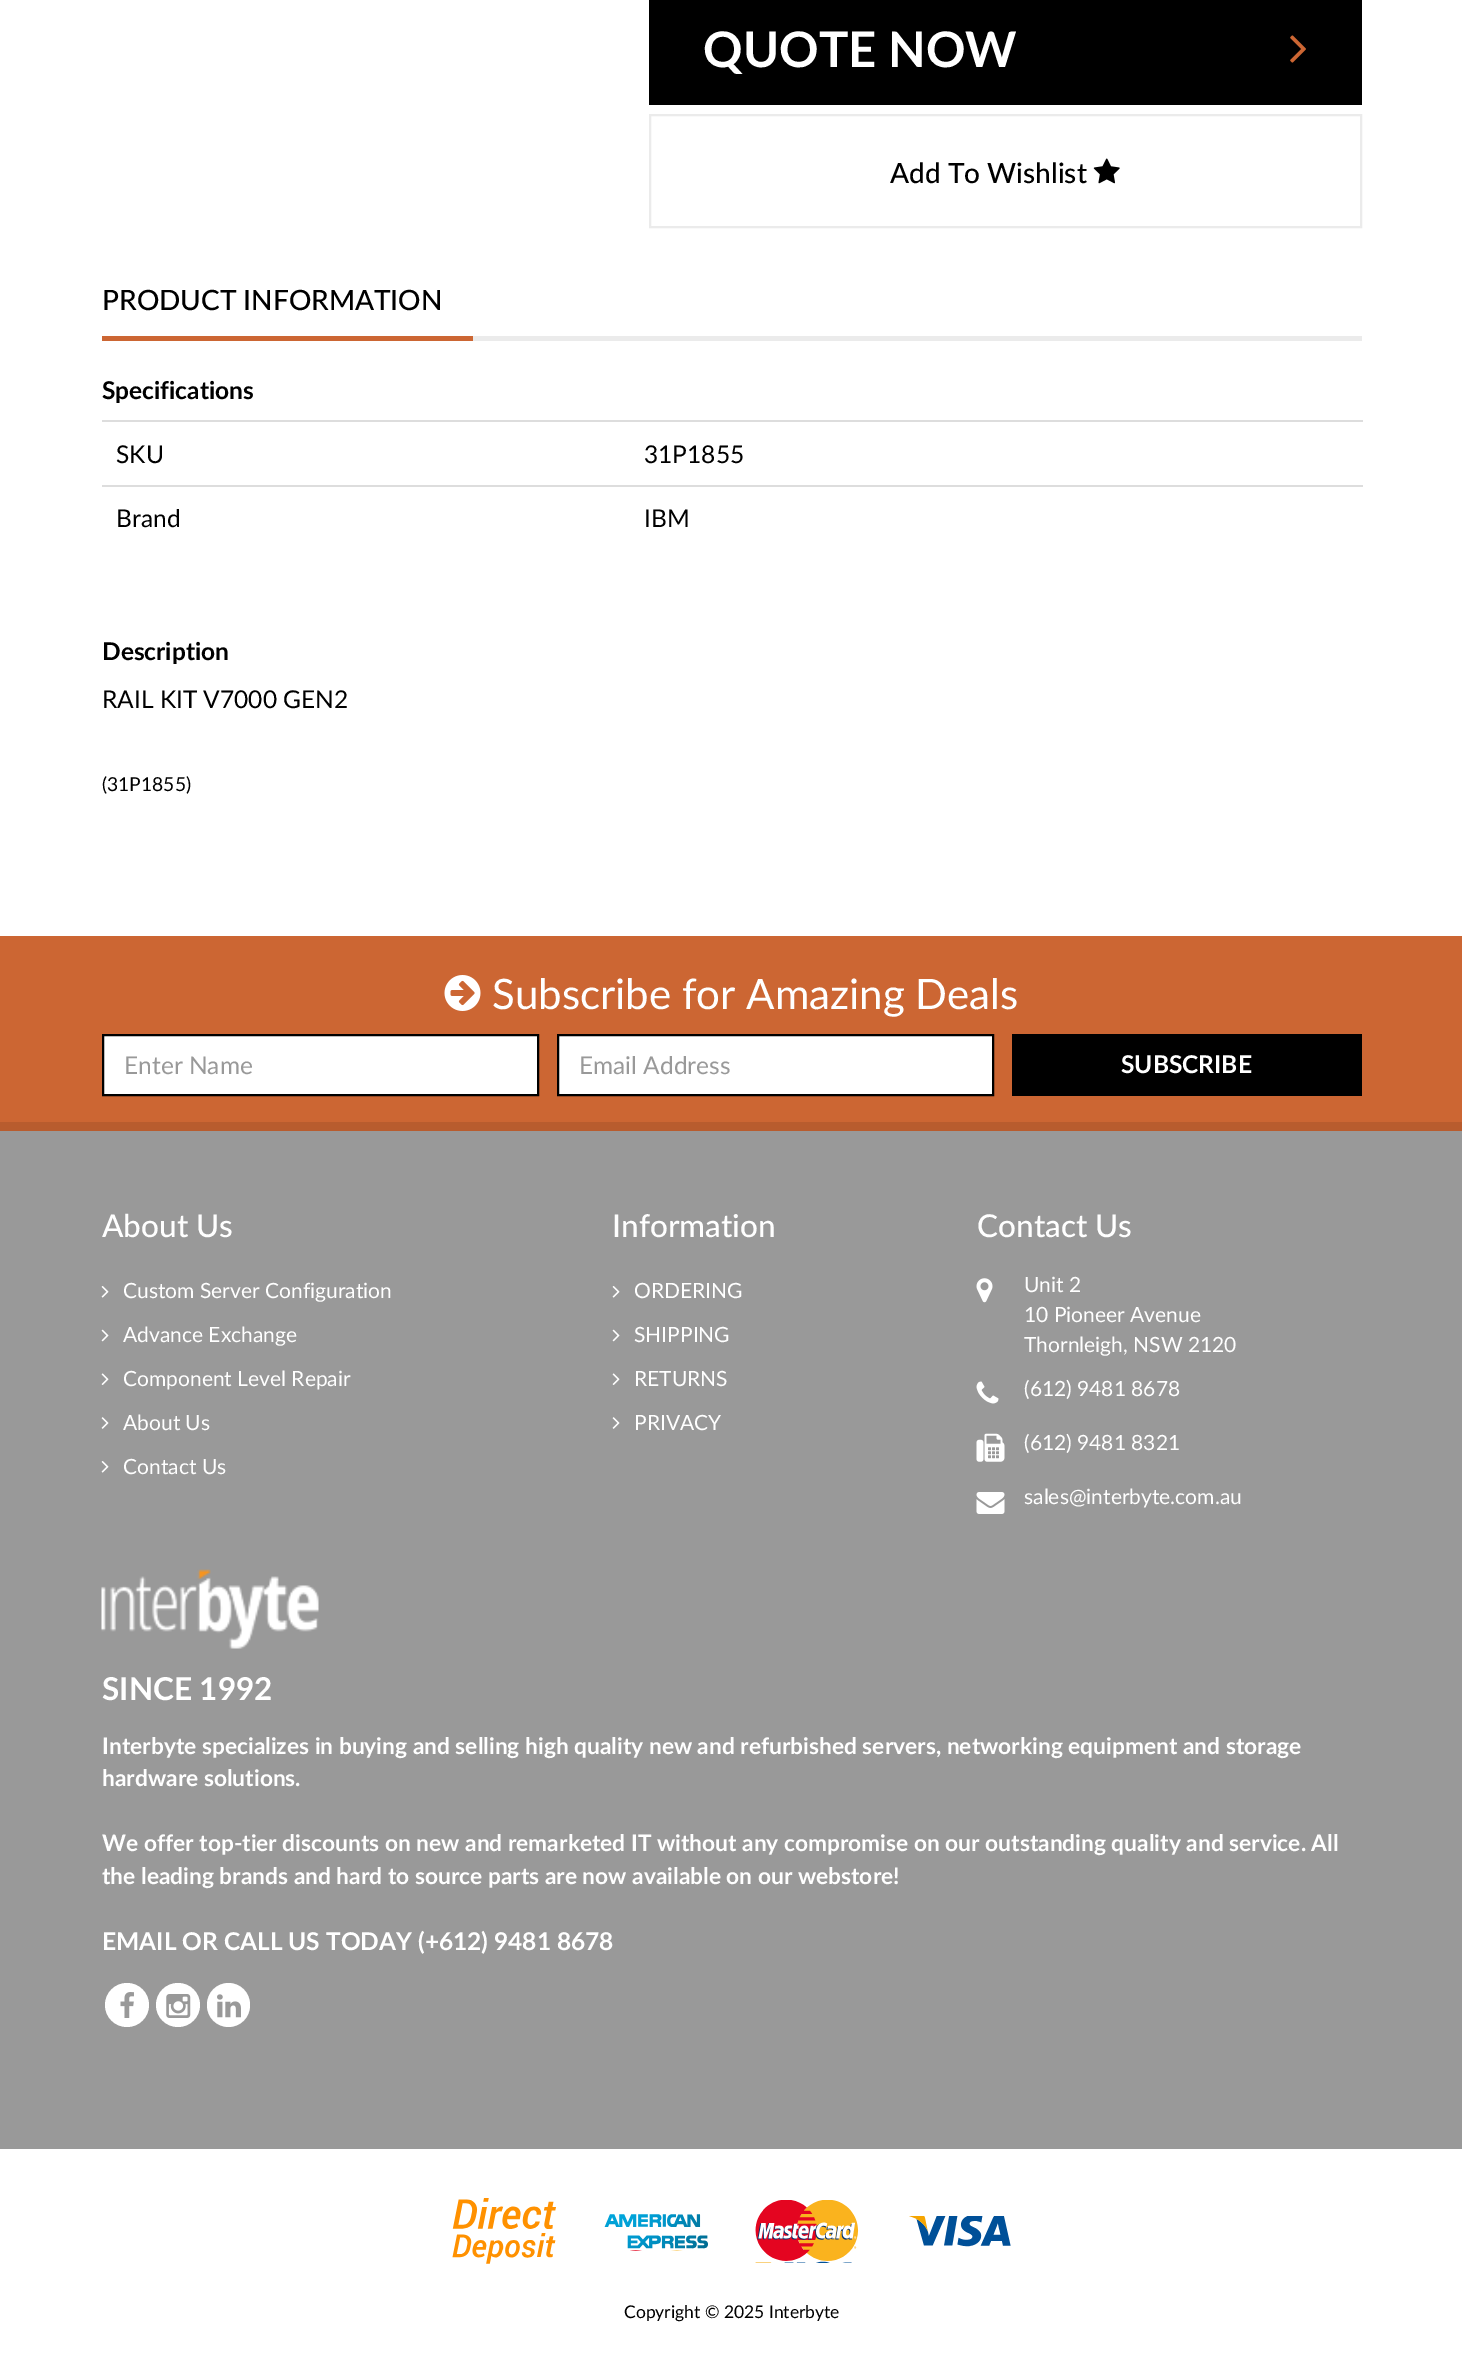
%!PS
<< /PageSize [1462 2362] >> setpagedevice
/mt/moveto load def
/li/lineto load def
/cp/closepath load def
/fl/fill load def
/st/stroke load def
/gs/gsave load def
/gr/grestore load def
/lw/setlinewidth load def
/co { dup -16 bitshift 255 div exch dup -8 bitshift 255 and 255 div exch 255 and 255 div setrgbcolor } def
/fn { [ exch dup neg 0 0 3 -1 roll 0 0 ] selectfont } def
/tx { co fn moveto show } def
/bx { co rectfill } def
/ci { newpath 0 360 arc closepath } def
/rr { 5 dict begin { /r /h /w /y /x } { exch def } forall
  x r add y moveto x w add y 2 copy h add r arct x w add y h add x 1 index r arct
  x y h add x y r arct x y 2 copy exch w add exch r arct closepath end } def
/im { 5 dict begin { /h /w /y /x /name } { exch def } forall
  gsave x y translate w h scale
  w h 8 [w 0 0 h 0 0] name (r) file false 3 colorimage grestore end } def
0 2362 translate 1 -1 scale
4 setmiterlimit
0 0 1462 2362 16#FFFFFF bx
649 0 713 105 16#000000 bx
(media/1.raw) 1290 35 16 28 im
16#EBEBEB co
2 lw
650 115 711 112 rectstroke
(media/2.raw) 1093 158 27 26 im
102 336 371 5 16#CC6633 bx
473 336 889 5 16#EBEBEB bx
102 420 1261 2 16#DDDDDD bx
102 485 1261 2 16#DDDDDD bx
0 936 1462 186 16#CC6633 bx
0 1122 1462 9 16#B85C2E bx
(media/3.raw) 444 975 37 36 im
16#FFFFFF co
103 1035 mt 538 1035 li 538 1095 li 103 1095 li cp gs fl gr
16#000000 co
st
16#FFFFFF co
558 1035 mt 993 1035 li 993 1095 li 558 1095 li cp gs fl gr
16#000000 co
st
1012 1034 350 62 16#000000 bx
0 1131 1462 1018 16#999999 bx
(media/4.raw) 101 1286 8 12 im
(media/5.raw) 101 1329 8 13 im
(media/6.raw) 101 1373 8 12 im
(media/7.raw) 101 1417 8 12 im
(media/4.raw) 101 1461 8 12 im
(media/4.raw) 612 1286 8 12 im
(media/5.raw) 612 1329 8 13 im
(media/6.raw) 612 1373 8 12 im
(media/7.raw) 612 1417 8 12 im
(media/8.raw) 976 1278 17 25 im
(media/9.raw) 976 1381 23 23 im
(media/10.raw) 976 1433 29 29 im
(media/11.raw) 976 1492 29 22 im
(media/12.raw) 101 1569 218 80 im
16#FFFFFF co
127 2005 22 ci fl
(media/13.raw) 120 1992 14 26 im
178 2005 22 ci fl
(media/14.raw) 166 1994 25 24 im
207 1983 43 44 21.5 rr fl
(media/15.raw) 217 1994 24 24 im
(media/16.raw) 452 2198 104 66 im
(media/17.raw) 604 2214 104 37 im
(media/18.raw) 755 2200 104 63 im
(media/19.raw) 909 2216 102 31 im
(QUOTE NOW) 703 67 /Lato-Bold 49 16#FFFFFF tx
(Add To Wishlist) 890 183 /Lato-Medium 28 16#000000 tx
(PRODUCT INFORMATION) 102 310 /Lato-Medium 28 16#000000 tx
(Specifications) 102 399 /Lato-Bold 24.5 16#000000 tx
(SKU) 116 463 /Lato-Regular 24.5 16#000000 tx
(31P1855) 644 463 /Lato-Regular 24.5 16#000000 tx
(Brand) 116 527 /Lato-Regular 24.5 16#000000 tx
(IBM) 644 527 /Lato-Regular 24.5 16#000000 tx
(Description) 102 660 /Lato-Bold 24.5 16#000000 tx
(RAIL KIT V7000 GEN2) 102 708 /Lato-Regular 24.5 16#000000 tx
(\(31P1855\)) 102 791 /Lato-Regular 19.25 16#000000 tx
(Subscribe for Amazing Deals) 492 1009 /Lato-Regular 42 16#FFFFFF tx
(Enter Name) 124 1074 /Lato-Regular 24.5 16#999999 tx
(Email Address) 579 1074 /Lato-Regular 24.5 16#999999 tx
(SUBSCRIBE) 1121 1073 /Lato-Bold 24.5 16#FFFFFF tx
(About Us) 102 1237 /Lato-Medium 31.5 16#FFFFFF tx
(Custom Server Configuration) 123 1298 /Lato-Regular 21 16#FFFFFF tx
(Advance Exchange) 123 1342 /Lato-Regular 21 16#FFFFFF tx
(Component Level Repair) 123 1386 /Lato-Regular 21 16#FFFFFF tx
(About Us) 123 1430 /Lato-Regular 21 16#FFFFFF tx
(Contact Us) 123 1474 /Lato-Regular 21 16#FFFFFF tx
(Information) 612 1237 /Lato-Medium 31.5 16#FFFFFF tx
(ORDERING) 634 1298 /Lato-Regular 21 16#FFFFFF tx
(SHIPPING) 634 1342 /Lato-Regular 21 16#FFFFFF tx
(RETURNS) 634 1386 /Lato-Regular 21 16#FFFFFF tx
(PRIVACY) 634 1430 /Lato-Regular 21 16#FFFFFF tx
(Contact Us) 977 1237 /Lato-Medium 31.5 16#FFFFFF tx
(Unit 2) 1024 1292 /Lato-Regular 21 16#FFFFFF tx
(10 Pioneer Avenue) 1024 1322 /Lato-Regular 21 16#FFFFFF tx
(Thornleigh, NSW 2120) 1024 1352 /Lato-Regular 21 16#FFFFFF tx
(\(612\) 9481 8678) 1024 1396 /Lato-Regular 21 16#FFFFFF tx
(\(612\) 9481 8321) 1024 1450 /Lato-Regular 21 16#FFFFFF tx
(sales@interbyte.com.au) 1024 1504 /Lato-Regular 21 16#FFFFFF tx
(SINCE 1992) 102 1700 /Lato-Bold 31.5 16#FFFFFF tx
(Interbyte specializes in buying and selling high quality new and refurbished servers, networking equipment and storage) 102 1754 /Lato-Bold 22.75 16#FFFFFF tx
(hardware solutions.) 102 1786 /Lato-Bold 22.75 16#FFFFFF tx
(We offer top-tier discounts on new and remarketed IT without any compromise on our outstanding quality and service. All) 102 1851 /Lato-Bold 22.75 16#FFFFFF tx
(the leading brands and hard to source parts are now available on our webstore!) 102 1884 /Lato-Bold 22.75 16#FFFFFF tx
(EMAIL OR CALL US TODAY \(+612\) 9481 8678) 102 1950 /Lato-Bold 24.5 16#FFFFFF tx
(Copyright © 2025 Interbyte) 624 2318 /Lato-Regular 17.5 16#000000 tx
showpage
